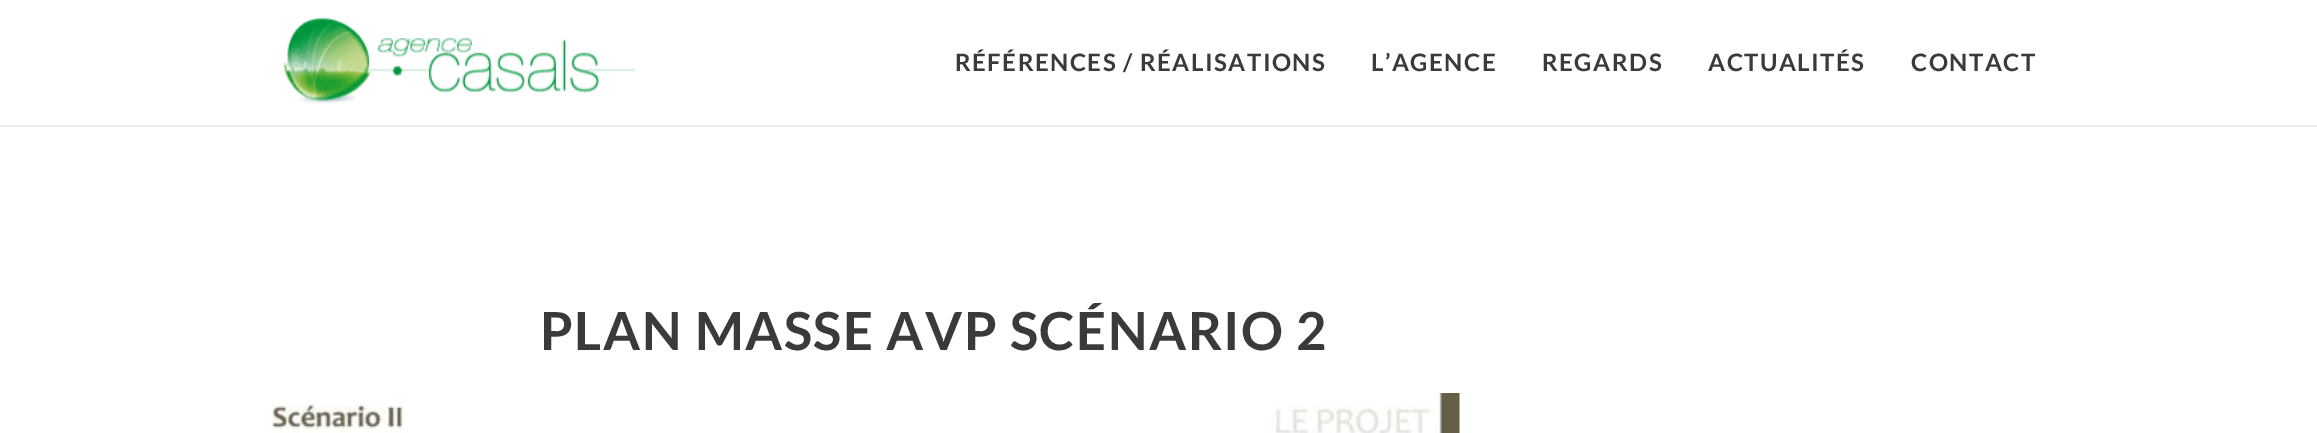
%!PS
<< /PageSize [2317 433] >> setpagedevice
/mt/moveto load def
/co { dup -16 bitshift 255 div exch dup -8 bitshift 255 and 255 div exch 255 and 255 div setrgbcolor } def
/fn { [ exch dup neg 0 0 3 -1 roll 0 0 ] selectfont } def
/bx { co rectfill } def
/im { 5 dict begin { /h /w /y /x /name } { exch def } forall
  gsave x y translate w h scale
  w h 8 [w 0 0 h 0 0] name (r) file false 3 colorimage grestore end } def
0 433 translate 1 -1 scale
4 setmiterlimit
0 0 2317 433 16#FFFFFF bx
0 125 2317 2 16#EDEDED bx
(media/1.raw) 282 18 354 86 im
(media/2.raw) 269 393 1191 40 im
/Lato-Bold 24 fn
16#3A3A3A co
955 71 mt 1.5 0 (RÉFÉRENCES / RÉALISATIONS) ashow
1371 71 mt 1.5 0 (L’AGENCE) ashow
1542 71 mt 1.5 0 (REGARDS) ashow
1708 71 mt 1.5 0 (ACTUALITÉS) ashow
1911 71 mt 1.5 0 (CONTACT) ashow
/Lato-Bold 52.5 fn
540 350 mt 1.5 0 (PLAN MASSE AVP SCÉNARIO 2) ashow
showpage
